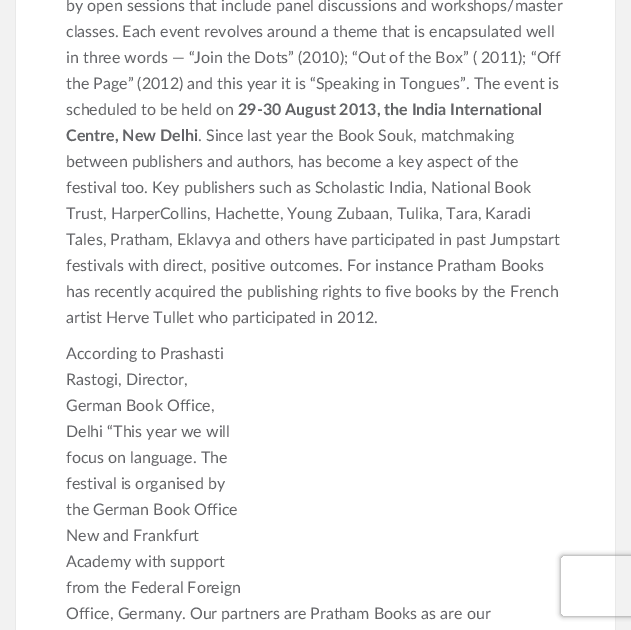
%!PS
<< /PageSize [631 630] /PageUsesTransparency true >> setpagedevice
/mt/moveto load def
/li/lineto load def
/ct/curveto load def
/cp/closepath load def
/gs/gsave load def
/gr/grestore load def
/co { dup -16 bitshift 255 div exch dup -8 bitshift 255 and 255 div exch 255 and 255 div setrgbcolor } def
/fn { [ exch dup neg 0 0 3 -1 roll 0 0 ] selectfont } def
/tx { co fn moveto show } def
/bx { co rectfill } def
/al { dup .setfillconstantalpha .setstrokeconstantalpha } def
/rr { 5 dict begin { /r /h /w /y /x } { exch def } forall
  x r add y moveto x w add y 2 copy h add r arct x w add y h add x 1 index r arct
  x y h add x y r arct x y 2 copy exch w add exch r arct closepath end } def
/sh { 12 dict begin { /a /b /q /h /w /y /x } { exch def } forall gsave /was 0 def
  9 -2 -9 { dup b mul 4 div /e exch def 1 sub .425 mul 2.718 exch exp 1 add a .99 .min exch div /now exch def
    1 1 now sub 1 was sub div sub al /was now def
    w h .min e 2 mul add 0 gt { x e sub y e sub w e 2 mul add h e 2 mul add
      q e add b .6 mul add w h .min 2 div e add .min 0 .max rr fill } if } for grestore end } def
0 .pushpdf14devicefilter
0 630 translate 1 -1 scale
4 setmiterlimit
0 0 631 630 16#F2F2F2 bx
16 0 599 630 16#FFFFFF bx
615 0 1 630 16#E9E9E9 bx
15 0 1 630 16#E9E9E9 bx
gs
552 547 mt 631 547 li 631 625 li 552 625 li cp 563 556 mt 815 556 li 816 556 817 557 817 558 ct 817 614 li 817 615 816 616 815 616 ct 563 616 li 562 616 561 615 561 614 ct 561 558 li 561 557 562 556 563 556 ct cp eoclip newpath
16#808080 co
561 556 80 60 2 2.5 1 sh
gr
(by open sessions that include panel discussions and workshops/master) 66 11 /Lato-Regular 16 16#636467 tx
(classes. Each event revolves around a theme that is encapsulated well) 66 37 /Lato-Regular 16 16#636467 tx
(in three words — “Join the Dots” \(2010\); “Out of the Box” \( 2011\); “Off) 66 63 /Lato-Regular 16 16#636467 tx
(the Page” \(2012\) and this year it is “Speaking in Tongues”. The event is) 66 89 /Lato-Regular 16 16#636467 tx
(scheduled to be held on) 66 115 /Lato-Regular 16 16#636467 tx
(29-30 August 2013, the India International) 238 115 /Lato-Bold 16 16#636467 tx
(Centre, New Delhi) 66 141 /Lato-Bold 16 16#636467 tx
(. Since last year the Book Souk, matchmaking) 198 141 /Lato-Regular 16 16#636467 tx
(between publishers and authors, has become a key aspect of the) 66 167 /Lato-Regular 16 16#636467 tx
(festival too. Key publishers such as Scholastic India, National Book) 66 193 /Lato-Regular 16 16#636467 tx
(Trust, HarperCollins, Hachette, Young Zubaan, Tulika, Tara, Karadi) 66 219 /Lato-Regular 16 16#636467 tx
(Tales, Pratham, Eklavya and others have participated in past Jumpstart) 66 245 /Lato-Regular 16 16#636467 tx
(festivals with direct, positive outcomes. For instance Pratham Books) 66 271 /Lato-Regular 16 16#636467 tx
(has recently acquired the publishing rights to five books by the French) 66 297 /Lato-Regular 16 16#636467 tx
(artist Herve Tullet who participated in 2012.) 66 323 /Lato-Regular 16 16#636467 tx
(According to Prashasti) 66 359 /Lato-Regular 16 16#636467 tx
(Rastogi, Director,) 66 385 /Lato-Regular 16 16#636467 tx
(German Book Office,) 66 411 /Lato-Regular 16 16#636467 tx
(Delhi “This year we will) 66 437 /Lato-Regular 16 16#636467 tx
(focus on language. The) 66 463 /Lato-Regular 16 16#636467 tx
(festival is organised by) 66 489 /Lato-Regular 16 16#636467 tx
(the German Book Office) 66 515 /Lato-Regular 16 16#636467 tx
(New and Frankfurt) 66 541 /Lato-Regular 16 16#636467 tx
(Academy with support) 66 567 /Lato-Regular 16 16#636467 tx
(from the Federal Foreign) 66 593 /Lato-Regular 16 16#636467 tx
(Office, Germany. Our partners are Pratham Books as are our) 66 619 /Lato-Regular 16 16#636467 tx
.poppdf14devicefilter showpage
